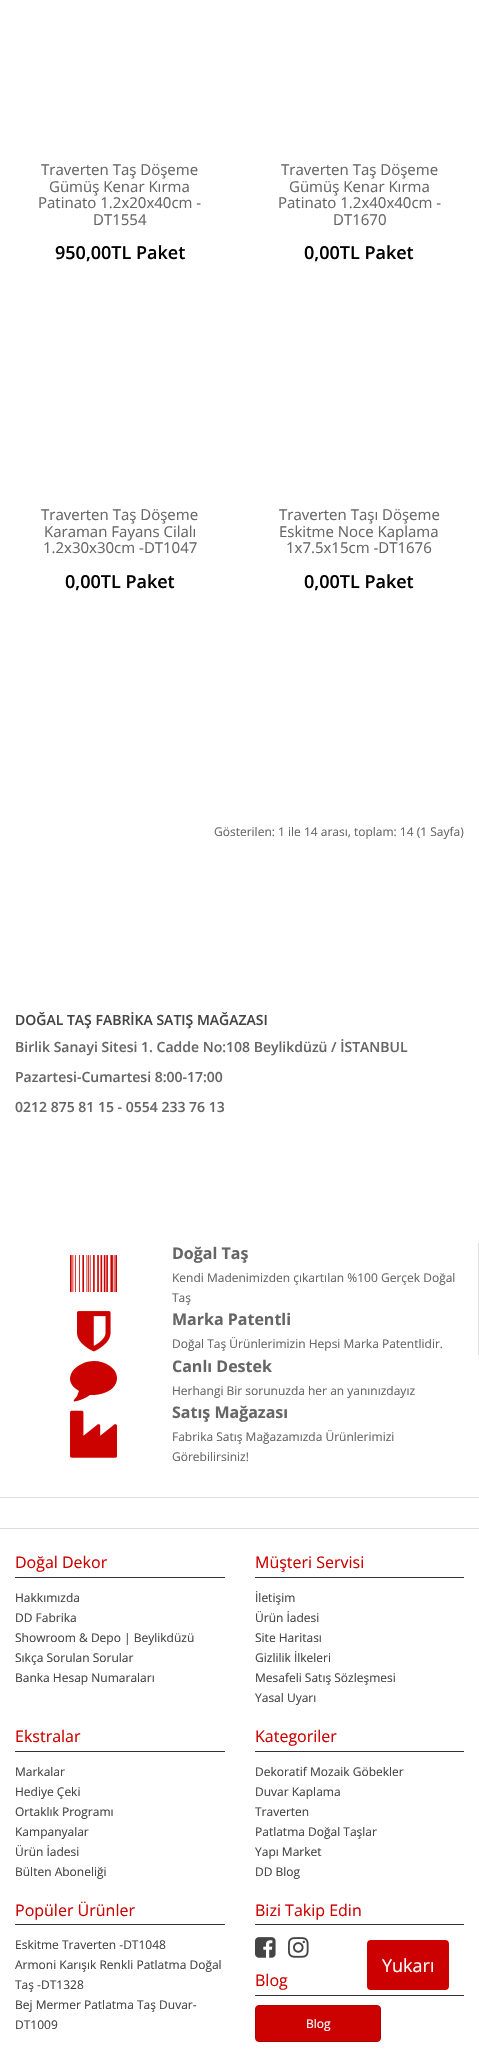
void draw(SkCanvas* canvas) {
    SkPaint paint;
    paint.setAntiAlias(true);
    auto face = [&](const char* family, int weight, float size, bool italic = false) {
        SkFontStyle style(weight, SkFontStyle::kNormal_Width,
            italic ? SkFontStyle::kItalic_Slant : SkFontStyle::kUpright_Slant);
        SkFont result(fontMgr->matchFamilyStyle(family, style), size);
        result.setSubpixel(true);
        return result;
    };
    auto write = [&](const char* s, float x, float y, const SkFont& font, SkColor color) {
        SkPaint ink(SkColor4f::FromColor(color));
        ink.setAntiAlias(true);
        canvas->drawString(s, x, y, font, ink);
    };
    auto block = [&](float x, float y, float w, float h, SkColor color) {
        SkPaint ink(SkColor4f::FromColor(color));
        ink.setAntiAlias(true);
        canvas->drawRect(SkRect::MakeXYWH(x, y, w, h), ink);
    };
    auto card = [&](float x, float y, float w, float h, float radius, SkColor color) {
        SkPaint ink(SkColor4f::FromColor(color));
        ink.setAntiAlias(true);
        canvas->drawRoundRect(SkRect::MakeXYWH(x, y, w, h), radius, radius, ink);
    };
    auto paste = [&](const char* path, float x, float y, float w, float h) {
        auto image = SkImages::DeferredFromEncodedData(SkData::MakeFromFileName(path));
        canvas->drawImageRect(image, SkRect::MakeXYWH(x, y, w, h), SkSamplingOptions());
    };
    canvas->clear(SK_ColorWHITE);
    auto kFont1 = face("Open Sans", 400, 15);
    write("Traverten Taş Döşeme", 41, 175, kFont1, SkColorSetRGB(102, 102, 102));
    write("Gümüş Kenar Kırma", 49, 192, kFont1, SkColorSetRGB(102, 102, 102));
    write("Patinato 1.2x20x40cm -", 38, 208, kFont1, SkColorSetRGB(102, 102, 102));
    write("DT1554", 93, 225, kFont1, SkColorSetRGB(102, 102, 102));
    auto kFont2 = face("Open Sans", 600, 18);
    write("950,00TL Paket", 55, 259, kFont2, SK_ColorBLACK);
    write("Traverten Taş Döşeme", 281, 175, kFont1, SkColorSetRGB(102, 102, 102));
    write("Gümüş Kenar Kırma", 289, 192, kFont1, SkColorSetRGB(102, 102, 102));
    write("Patinato 1.2x40x40cm -", 278, 208, kFont1, SkColorSetRGB(102, 102, 102));
    write("DT1670", 333, 225, kFont1, SkColorSetRGB(102, 102, 102));
    write("0,00TL Paket", 304, 259, kFont2, SK_ColorBLACK);
    write("Traverten Taş Döşeme", 41, 520, kFont1, SkColorSetRGB(102, 102, 102));
    write("Karaman Fayans Cilalı", 44, 537, kFont1, SkColorSetRGB(102, 102, 102));
    write("1.2x30x30cm -DT1047", 43, 553, kFont1, SkColorSetRGB(102, 102, 102));
    write("0,00TL Paket", 65, 588, kFont2, SK_ColorBLACK);
    write("Traverten Taşı Döşeme", 279, 520, kFont1, SkColorSetRGB(102, 102, 102));
    write("Eskitme Noce Kaplama", 279, 537, kFont1, SkColorSetRGB(102, 102, 102));
    write("1x7.5x15cm -DT1676", 286, 553, kFont1, SkColorSetRGB(102, 102, 102));
    write("0,00TL Paket", 304, 588, kFont2, SK_ColorBLACK);
    auto kFont3 = face("Open Sans", 400, 12);
    write("Gösterilen: 1 ile 14 arası, toplam: 14 (1 Sayfa)", 214, 836, kFont3, SkColorSetRGB(102, 102, 102));
    auto kFont4 = face("Open Sans", 600, 14);
    write("DOĞAL TAŞ FABRİKA SATIŞ MAĞAZASI", 15, 1025, kFont4, SkColorSetRGB(68, 68, 68));
    write("Birlik Sanayi Sitesi 1. Cadde No:108 Beylikdüzü / İSTANBUL", 15, 1052, kFont4, SkColorSetRGB(102, 102, 102));
    write("Pazartesi-Cumartesi 8:00-17:00", 15, 1082, kFont4, SkColorSetRGB(102, 102, 102));
    write("0212 875 81 15 - 0554 233 76 13", 15, 1112, kFont4, SkColorSetRGB(102, 102, 102));
    block(0, 1497, 479, 1, SkColorSetRGB(221, 221, 221));
    block(478, 1243, 1, 112, SkColorSetRGB(221, 221, 221));
    paste("pic1.png", 70, 1255, 47, 37);
    auto kFont5 = face("Open Sans", 700, 16);
    write("Doğal Taş", 172, 1259, kFont5, SkColorSetRGB(102, 102, 102));
    write("Kendi Madenimizden çıkartılan %100 Gerçek Doğal", 172, 1282, kFont3, SkColorSetRGB(102, 102, 102));
    write("Taş", 172, 1302, kFont3, SkColorSetRGB(102, 102, 102));
    paste("pic2.png", 77, 1311, 34, 41);
    write("Marka Patentli", 172, 1325, kFont5, SkColorSetRGB(102, 102, 102));
    write("Doğal Taş Ürünlerimizin Hepsi Marka Patentlidir.", 172, 1348, kFont3, SkColorSetRGB(102, 102, 102));
    paint.setColor(SkColorSetRGB(204, 2, 0));
    canvas->drawPath(SkPathBuilder().moveTo(117, 1378).cubicTo(117, 1373, 114, 1369, 110, 1366).cubicTo(87, 1350, 54, 1377, 79, 1391).lineTo(77, 1396).cubicTo(76, 1398, 70, 1403, 77, 1401).cubicTo(81, 1400, 86, 1398, 90, 1395).cubicTo(100, 1396, 117, 1391, 117, 1378).close().detach(), paint);
    write("Canlı Destek", 172, 1372, kFont5, SkColorSetRGB(102, 102, 102));
    write("Herhangi Bir sorunuzda her an yanınızdayız", 172, 1395, kFont3, SkColorSetRGB(102, 102, 102));
    paste("pic3.png", 70, 1410, 47, 48);
    write("Satış Mağazası", 172, 1418, kFont5, SkColorSetRGB(102, 102, 102));
    write("Fabrika Satış Mağazamızda Ürünlerimizi", 172, 1441, kFont3, SkColorSetRGB(102, 102, 102));
    write("Görebilirsiniz!", 172, 1461, kFont3, SkColorSetRGB(102, 102, 102));
    block(0, 1528, 479, 1, SkColorSetRGB(221, 221, 221));
    block(15, 1577, 210, 1, SkColorSetRGB(51, 51, 51));
    auto kFont6 = face("Open Sans", 400, 16);
    write("Doğal Dekor", 15, 1568, kFont6, SkColorSetRGB(204, 2, 0));
    write("Hakkımızda", 15, 1602, kFont3, SkColorSetRGB(68, 68, 68));
    write("DD Fabrika", 15, 1622, kFont3, SkColorSetRGB(68, 68, 68));
    write("Showroom & Depo | Beylikdüzü", 15, 1642, kFont3, SkColorSetRGB(68, 68, 68));
    write("Sıkça Sorulan Sorular", 15, 1662, kFont3, SkColorSetRGB(68, 68, 68));
    write("Banka Hesap Numaraları", 15, 1682, kFont3, SkColorSetRGB(68, 68, 68));
    block(255, 1577, 209, 1, SkColorSetRGB(51, 51, 51));
    write("Müşteri Servisi", 255, 1568, kFont6, SkColorSetRGB(204, 2, 0));
    write("İletişim", 255, 1602, kFont3, SkColorSetRGB(68, 68, 68));
    write("Ürün İadesi", 255, 1622, kFont3, SkColorSetRGB(68, 68, 68));
    write("Site Haritası", 255, 1642, kFont3, SkColorSetRGB(68, 68, 68));
    write("Gizlilik İlkeleri", 255, 1662, kFont3, SkColorSetRGB(68, 68, 68));
    write("Mesafeli Satış Sözleşmesi", 255, 1682, kFont3, SkColorSetRGB(68, 68, 68));
    write("Yasal Uyarı", 255, 1702, kFont3, SkColorSetRGB(68, 68, 68));
    block(15, 1751, 210, 1, SkColorSetRGB(51, 51, 51));
    write("Ekstralar", 15, 1742, kFont6, SkColorSetRGB(204, 2, 0));
    write("Markalar", 15, 1776, kFont3, SkColorSetRGB(68, 68, 68));
    write("Hediye Çeki", 15, 1796, kFont3, SkColorSetRGB(68, 68, 68));
    write("Ortaklık Programı", 15, 1816, kFont3, SkColorSetRGB(68, 68, 68));
    write("Kampanyalar", 15, 1836, kFont3, SkColorSetRGB(68, 68, 68));
    write("Ürün İadesi", 15, 1856, kFont3, SkColorSetRGB(68, 68, 68));
    write("Bülten Aboneliği", 15, 1876, kFont3, SkColorSetRGB(68, 68, 68));
    block(255, 1751, 209, 1, SkColorSetRGB(51, 51, 51));
    write("Kategoriler", 255, 1742, kFont6, SkColorSetRGB(204, 2, 0));
    write("Dekoratif Mozaik Göbekler", 255, 1776, kFont3, SkColorSetRGB(68, 68, 68));
    write("Duvar Kaplama", 255, 1796, kFont3, SkColorSetRGB(68, 68, 68));
    write("Traverten", 255, 1816, kFont3, SkColorSetRGB(68, 68, 68));
    write("Patlatma Doğal Taşlar", 255, 1836, kFont3, SkColorSetRGB(68, 68, 68));
    write("Yapı Market", 255, 1856, kFont3, SkColorSetRGB(68, 68, 68));
    write("DD Blog", 255, 1876, kFont3, SkColorSetRGB(68, 68, 68));
    block(15, 1924, 210, 1, SkColorSetRGB(51, 51, 51));
    write("Popüler Ürünler", 15, 1916, kFont6, SkColorSetRGB(204, 2, 0));
    write("Eskitme Traverten -DT1048", 15, 1949, kFont3, SkColorSetRGB(68, 68, 68));
    write("Armoni Karışık Renkli Patlatma Doğal", 15, 1969, kFont3, SkColorSetRGB(68, 68, 68));
    write("Taş -DT1328", 15, 1989, kFont3, SkColorSetRGB(68, 68, 68));
    write("Bej Mermer Patlatma Taş Duvar-", 15, 2009, kFont3, SkColorSetRGB(68, 68, 68));
    write("DT1009", 15, 2029, kFont3, SkColorSetRGB(68, 68, 68));
    block(255, 1924, 209, 1, SkColorSetRGB(51, 51, 51));
    write("Bizi Takip Edin", 255, 1916, kFont6, SkColorSetRGB(204, 2, 0));
    paste("pic4.png", 255, 1937, 21, 21);
    paste("pic5.png", 288, 1937, 21, 21);
    block(255, 1995, 209, 1, SkColorSetRGB(51, 51, 51));
    write("Blog", 255, 1986, kFont6, SkColorSetRGB(204, 2, 0));
    canvas->drawRoundRect(SkRect::MakeXYWH(255.5f, 2005.5f, 125, 36), 3.5f, 3.5f, paint);
    paint.setStyle(SkPaint::kStroke_Style);
    paint.setStrokeWidth(1);
    paint.setColor(SkColorSetRGB(171, 5, 3));
    canvas->drawRoundRect(SkRect::MakeXYWH(255.5f, 2005.5f, 125, 36), 3.5f, 3.5f, paint);
    write("Blog", 306, 2028, kFont3, SK_ColorWHITE);
    card(367, 1940, 82, 50, 4, SkColorSetRGB(204, 0, 0));
    auto kFont7 = face("Open Sans", 400, 18);
    write("Yukarı", 382, 1972, kFont7, SK_ColorWHITE);
}
